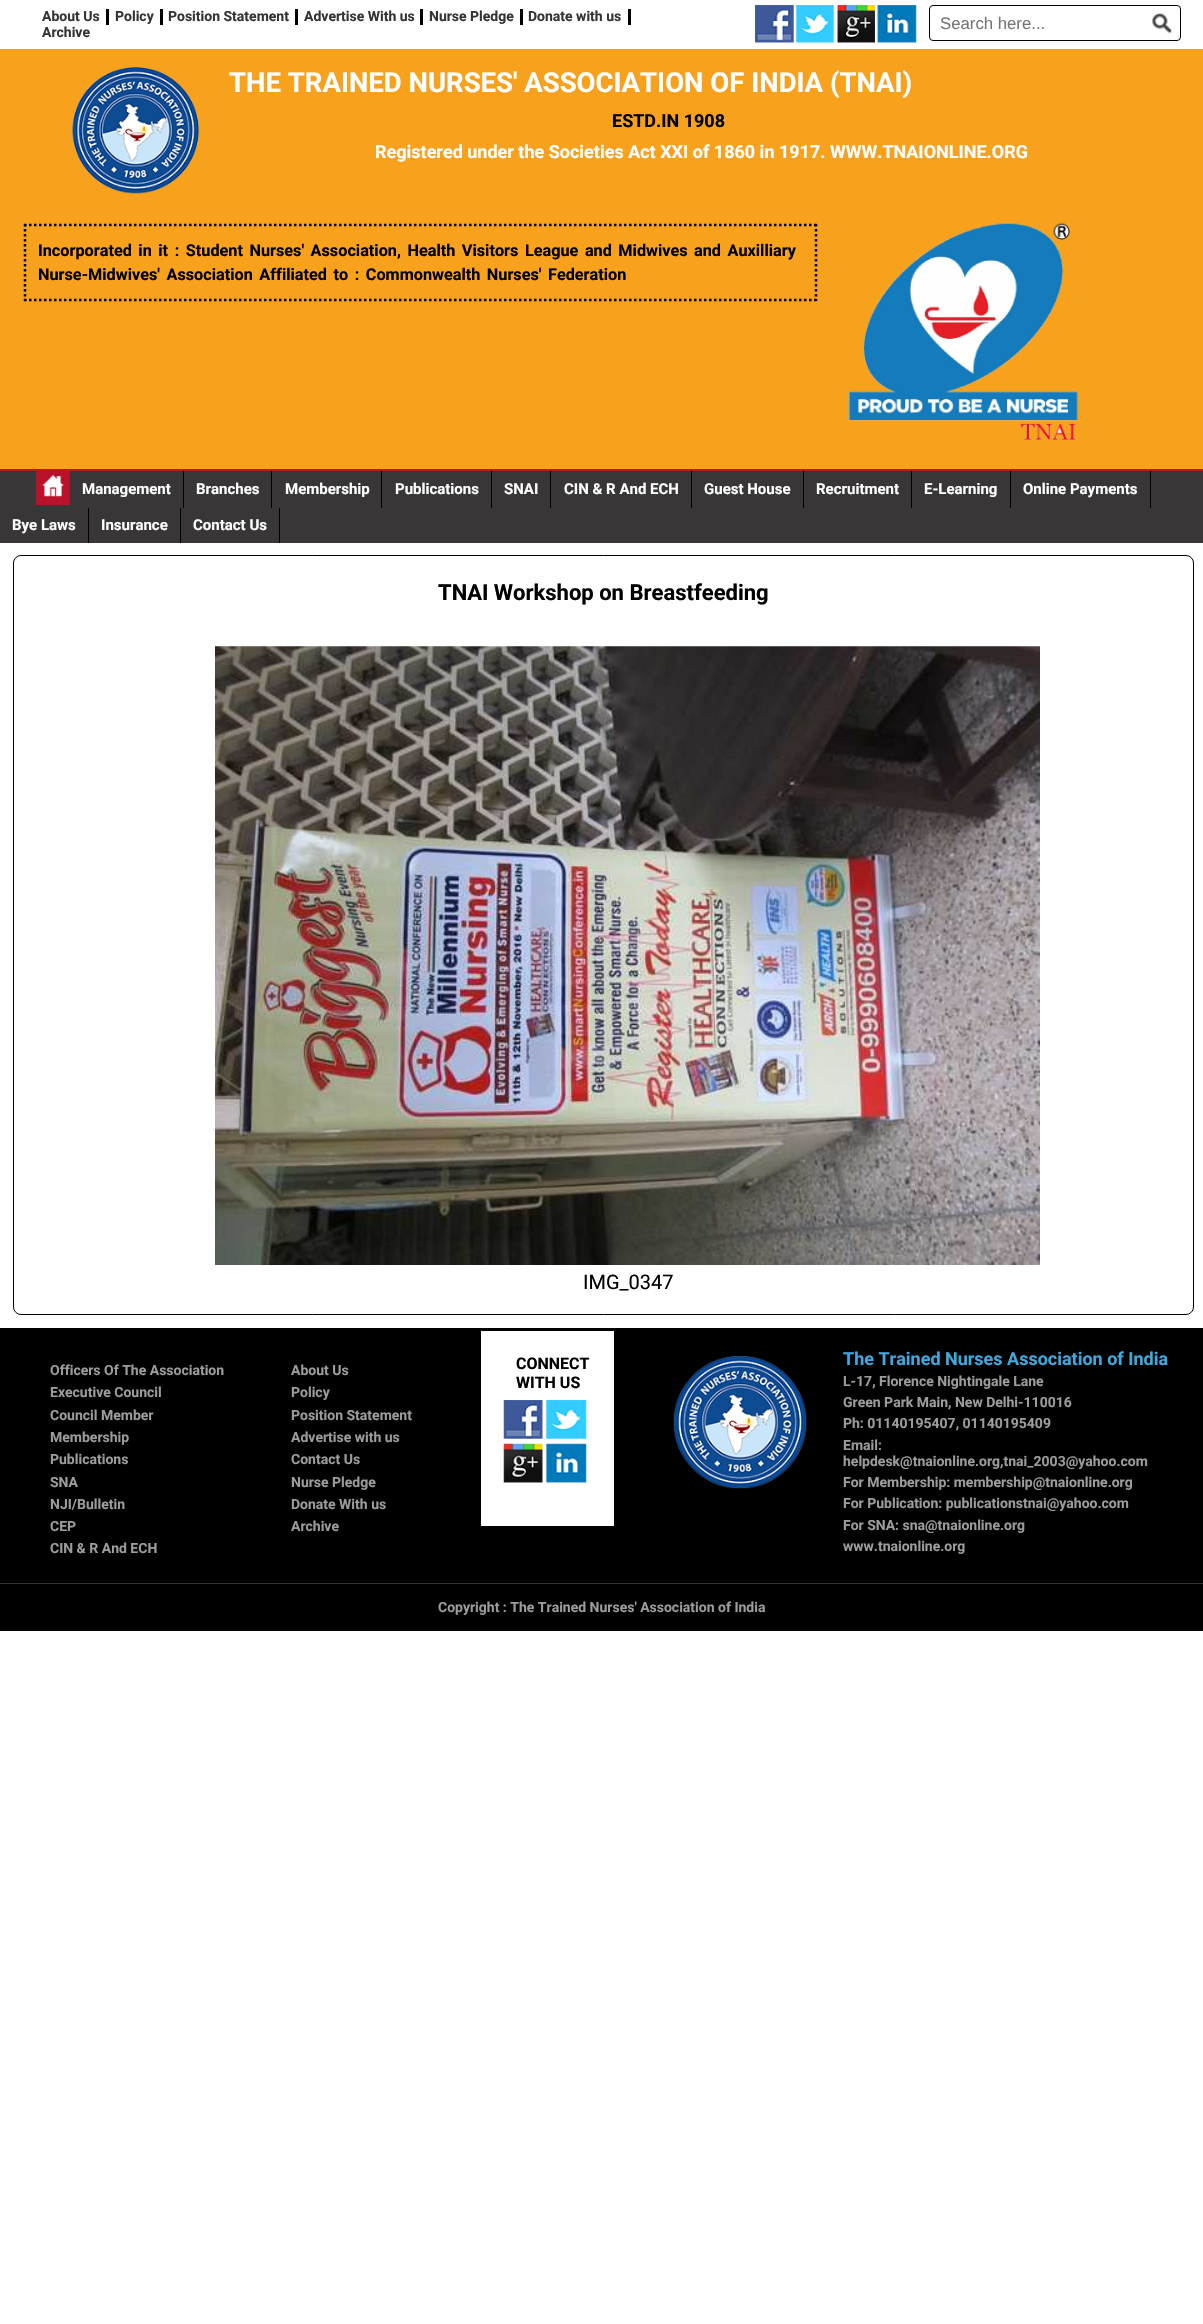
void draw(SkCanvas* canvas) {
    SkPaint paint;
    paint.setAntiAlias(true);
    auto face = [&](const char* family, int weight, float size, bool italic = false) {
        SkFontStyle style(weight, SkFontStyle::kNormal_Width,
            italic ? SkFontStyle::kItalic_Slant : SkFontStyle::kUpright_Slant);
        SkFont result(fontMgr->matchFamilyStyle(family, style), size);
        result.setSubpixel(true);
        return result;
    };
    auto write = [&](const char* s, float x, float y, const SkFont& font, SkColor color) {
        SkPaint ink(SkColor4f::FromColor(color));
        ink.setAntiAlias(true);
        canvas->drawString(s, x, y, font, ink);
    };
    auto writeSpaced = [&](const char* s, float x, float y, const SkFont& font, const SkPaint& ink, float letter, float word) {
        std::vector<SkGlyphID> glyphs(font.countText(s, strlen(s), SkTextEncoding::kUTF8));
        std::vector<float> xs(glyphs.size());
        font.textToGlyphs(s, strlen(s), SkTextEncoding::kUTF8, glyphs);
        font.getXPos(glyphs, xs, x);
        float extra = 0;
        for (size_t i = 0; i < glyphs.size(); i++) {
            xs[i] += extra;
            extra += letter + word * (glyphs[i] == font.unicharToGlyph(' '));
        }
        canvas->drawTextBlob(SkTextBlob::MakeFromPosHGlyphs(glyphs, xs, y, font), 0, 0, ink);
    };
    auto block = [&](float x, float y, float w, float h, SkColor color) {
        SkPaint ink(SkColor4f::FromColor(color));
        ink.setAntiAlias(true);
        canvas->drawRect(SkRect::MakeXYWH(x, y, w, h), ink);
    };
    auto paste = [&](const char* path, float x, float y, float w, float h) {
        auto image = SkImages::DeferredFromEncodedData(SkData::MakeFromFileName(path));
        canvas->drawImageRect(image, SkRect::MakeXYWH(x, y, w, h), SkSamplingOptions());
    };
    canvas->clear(SK_ColorWHITE);
    block(106, 9, 3, 16, SK_ColorBLACK);
    auto kFont1 = face("Roboto", 700, 14);
    write("About Us", 42, 21, kFont1, SkColorSetRGB(52, 52, 52));
    block(160, 9, 3, 16, SK_ColorBLACK);
    write("Policy", 115, 21, kFont1, SkColorSetRGB(52, 52, 52));
    block(295, 9, 3, 16, SK_ColorBLACK);
    write("Position Statement", 168, 21, kFont1, SkColorSetRGB(52, 52, 52));
    block(420, 9, 3, 16, SK_ColorBLACK);
    write("Advertise With us", 304, 21, kFont1, SkColorSetRGB(52, 52, 52));
    block(520, 9, 3, 16, SK_ColorBLACK);
    write("Nurse Pledge", 429, 21, kFont1, SkColorSetRGB(52, 52, 52));
    block(628, 9, 3, 16, SK_ColorBLACK);
    write("Donate with us", 528, 21, kFont1, SkColorSetRGB(52, 52, 52));
    write("Archive", 42, 37, kFont1, SkColorSetRGB(52, 52, 52));
    paste("pic1.png", 755, 5, 39, 38);
    paste("pic2.png", 796, 5, 38, 38);
    paste("pic3.png", 837, 5, 38, 38);
    paste("pic4.png", 877, 5, 40, 38);
    paint.setStyle(SkPaint::kStroke_Style);
    paint.setStrokeWidth(1);
    paint.setColor(SK_ColorBLACK);
    canvas->drawRoundRect(SkRect::MakeXYWH(929.5f, 5.5f, 251, 35), 3.5f, 3.5f, paint);
    auto kFont2 = face("Liberation Sans", 400, 16.75f);
    write("Search here...", 940, 29, kFont2, SkColorSetRGB(117, 117, 117));
    paste("pic5.png", 1152, 13, 20, 20);
    block(0, 49, 1203, 420, SkColorSetRGB(248, 161, 28));
    paste("pic6.png", 72, 67, 127, 127);
    auto kFont3 = face("Roboto", 700, 27.5f);
    write("THE TRAINED NURSES' ASSOCIATION OF INDIA (TNAI)", 229, 92, kFont3, SK_ColorWHITE);
    auto kFont4 = face("Roboto", 700, 18);
    write("ESTD.IN 1908", 612, 127, kFont4, SK_ColorBLACK);
    write("Registered under the Societies Act XXI of 1860 in 1917. WWW.TNAIONLINE.ORG", 375, 158, kFont4, SK_ColorWHITE);
    paint.setStrokeWidth(2.5f);
    paint.setPathEffect(SkDashPathEffect::Make({{2.5f, 2.5f}}, 0));
    canvas->drawPath(SkPathBuilder().moveTo(24, 225).lineTo(817.5f, 225).detach(), paint);
    paint.setPathEffect(nullptr);
    paint.setPathEffect(SkDashPathEffect::Make({{2.5f, 2.5f}}, 0));
    canvas->drawPath(SkPathBuilder().moveTo(816, 224).lineTo(816, 301).detach(), paint);
    paint.setPathEffect(nullptr);
    paint.setPathEffect(SkDashPathEffect::Make({{2.5f, 2.5f}}, 0));
    canvas->drawPath(SkPathBuilder().moveTo(24, 300).lineTo(817.5f, 300).detach(), paint);
    paint.setPathEffect(nullptr);
    paint.setPathEffect(SkDashPathEffect::Make({{2.5f, 2.5f}}, 0));
    canvas->drawPath(SkPathBuilder().moveTo(25, 224).lineTo(25, 301).detach(), paint);
    paint.setPathEffect(nullptr);
    auto kFont5 = face("Roboto", 700, 16.25f);
    paint.setStyle(SkPaint::kFill_Style);
    writeSpaced("Incorporated in it : Student Nurses' Association, Health Visitors League and Midwives", 38, 256, kFont5, paint, 0, 2.5f);
    writeSpaced("and Auxilliary", 694, 256, kFont5, paint, 0, 2.5f);
    writeSpaced("Nurse-Midwives' Association Affiliated to : Commonwealth Nurses'", 38, 280, kFont5, paint, 0, 2.5f);
    write("Federation", 548, 280, kFont5, SK_ColorBLACK);
    paste("pic7.png", 848, 223, 230, 217);
    block(0, 469, 1203, 2, SkColorSetRGB(185, 19, 43));
    block(0, 471, 1203, 72, SkColorSetRGB(56, 54, 55));
    block(36, 471, 34, 34, SkColorSetRGB(185, 19, 43));
    paste("pic8.png", 42, 475, 22, 22);
    block(183, 471, 1, 37, SK_ColorBLACK);
    auto kFont6 = face("Roboto", 700, 15);
    write("Management", 82, 494, kFont6, SK_ColorWHITE);
    block(271, 471, 1, 37, SK_ColorBLACK);
    write("Branches", 196, 494, kFont6, SK_ColorWHITE);
    block(381, 471, 1, 37, SK_ColorBLACK);
    write("Membership", 285, 494, kFont6, SK_ColorWHITE);
    block(491, 471, 1, 37, SK_ColorBLACK);
    write("Publications", 395, 494, kFont6, SK_ColorWHITE);
    block(550, 471, 1, 37, SK_ColorBLACK);
    write("SNAI", 504, 494, kFont6, SK_ColorWHITE);
    block(691, 471, 1, 37, SK_ColorBLACK);
    write("CIN & R And ECH", 564, 494, kFont6, SK_ColorWHITE);
    block(803, 471, 1, 37, SK_ColorBLACK);
    write("Guest House", 704, 494, kFont6, SK_ColorWHITE);
    block(911, 471, 1, 37, SK_ColorBLACK);
    write("Recruitment", 816, 494, kFont6, SK_ColorWHITE);
    block(1010, 471, 1, 37, SK_ColorBLACK);
    write("E-Learning", 924, 494, kFont6, SK_ColorWHITE);
    block(1150, 471, 1, 37, SK_ColorBLACK);
    write("Online Payments", 1023, 494, kFont6, SK_ColorWHITE);
    block(88, 508, 1, 35, SK_ColorBLACK);
    write("Bye Laws", 12, 530, kFont6, SK_ColorWHITE);
    block(180, 508, 1, 35, SK_ColorBLACK);
    write("Insurance", 101, 530, kFont6, SK_ColorWHITE);
    block(279, 508, 1, 35, SK_ColorBLACK);
    write("Contact Us", 193, 530, kFont6, SK_ColorWHITE);
    paint.setStyle(SkPaint::kStroke_Style);
    paint.setStrokeWidth(1);
    canvas->drawRoundRect(SkRect::MakeXYWH(13.5f, 555.5f, 1180, 759), 7.5f, 7.5f, paint);
    auto kFont7 = face("Roboto", 700, 22);
    write("TNAI Workshop on Breastfeeding", 438, 600, kFont7, SK_ColorBLACK);
    paste("pic9.png", 215, 646, 825, 619);
    auto kFont8 = face("Roboto", 400, 20);
    write("IMG_0347", 583, 1289, kFont8, SK_ColorBLACK);
    block(0, 1328, 1203, 255, SK_ColorBLACK);
    block(0, 1583, 1203, 1, SkColorSetRGB(51, 51, 51));
    write("Officers Of The Association", 50, 1375, kFont1, SkColorSetRGB(156, 156, 156));
    write("Executive Council", 50, 1397, kFont1, SkColorSetRGB(156, 156, 156));
    write("Council Member", 50, 1420, kFont1, SkColorSetRGB(156, 156, 156));
    write("Membership", 50, 1442, kFont1, SkColorSetRGB(156, 156, 156));
    write("Publications", 50, 1464, kFont1, SkColorSetRGB(156, 156, 156));
    write("SNA", 50, 1487, kFont1, SkColorSetRGB(156, 156, 156));
    write("NJI/Bulletin", 50, 1509, kFont1, SkColorSetRGB(156, 156, 156));
    write("CEP", 50, 1531, kFont1, SkColorSetRGB(156, 156, 156));
    write("CIN & R And ECH", 50, 1553, kFont1, SkColorSetRGB(156, 156, 156));
    write("About Us", 291, 1375, kFont1, SkColorSetRGB(156, 156, 156));
    write("Policy", 291, 1397, kFont1, SkColorSetRGB(156, 156, 156));
    write("Position Statement", 291, 1420, kFont1, SkColorSetRGB(156, 156, 156));
    write("Advertise with us", 291, 1442, kFont1, SkColorSetRGB(156, 156, 156));
    write("Contact Us", 291, 1464, kFont1, SkColorSetRGB(156, 156, 156));
    write("Nurse Pledge", 291, 1487, kFont1, SkColorSetRGB(156, 156, 156));
    write("Donate With us", 291, 1509, kFont1, SkColorSetRGB(156, 156, 156));
    write("Archive", 291, 1531, kFont1, SkColorSetRGB(156, 156, 156));
    block(481, 1331, 133, 195, SK_ColorWHITE);
    auto kFont9 = face("Roboto", 700, 16);
    write("CONNECT", 516, 1369, kFont9, SK_ColorBLACK);
    write("WITH US", 516, 1388, kFont9, SK_ColorBLACK);
    paste("pic10.png", 503, 1400, 40, 39);
    paste("pic11.png", 546, 1400, 41, 39);
    paste("pic12.png", 503, 1443, 40, 40);
    paste("pic13.png", 546, 1443, 41, 40);
    paste("pic14.png", 673, 1356, 134, 133);
    write("The Trained Nurses Association of India", 843, 1365, kFont4, SkColorSetRGB(64, 168, 221));
    write("L-17, Florence Nightingale Lane", 843, 1386, kFont1, SkColorSetRGB(156, 156, 156));
    write("Green Park Main, New Delhi-110016", 843, 1407, kFont1, SkColorSetRGB(156, 156, 156));
    write("Ph: 01140195407, 01140195409", 843, 1428, kFont1, SkColorSetRGB(156, 156, 156));
    write("Email:", 843, 1450, kFont1, SkColorSetRGB(156, 156, 156));
    write("helpdesk@tnaionline.org,tnai_2003@yahoo.com", 843, 1466, kFont1, SkColorSetRGB(156, 156, 156));
    write("For Membership: membership@tnaionline.org", 843, 1487, kFont1, SkColorSetRGB(156, 156, 156));
    write("For Publication: publicationstnai@yahoo.com", 843, 1508, kFont1, SkColorSetRGB(156, 156, 156));
    write("For SNA: sna@tnaionline.org", 843, 1530, kFont1, SkColorSetRGB(156, 156, 156));
    write("www.tnaionline.org", 843, 1551, kFont1, SkColorSetRGB(156, 156, 156));
    block(0, 1584, 1203, 47, SK_ColorBLACK);
    write("Copyright : The Trained Nurses' Association of India", 438, 1612, kFont1, SkColorSetRGB(156, 156, 156));
}
